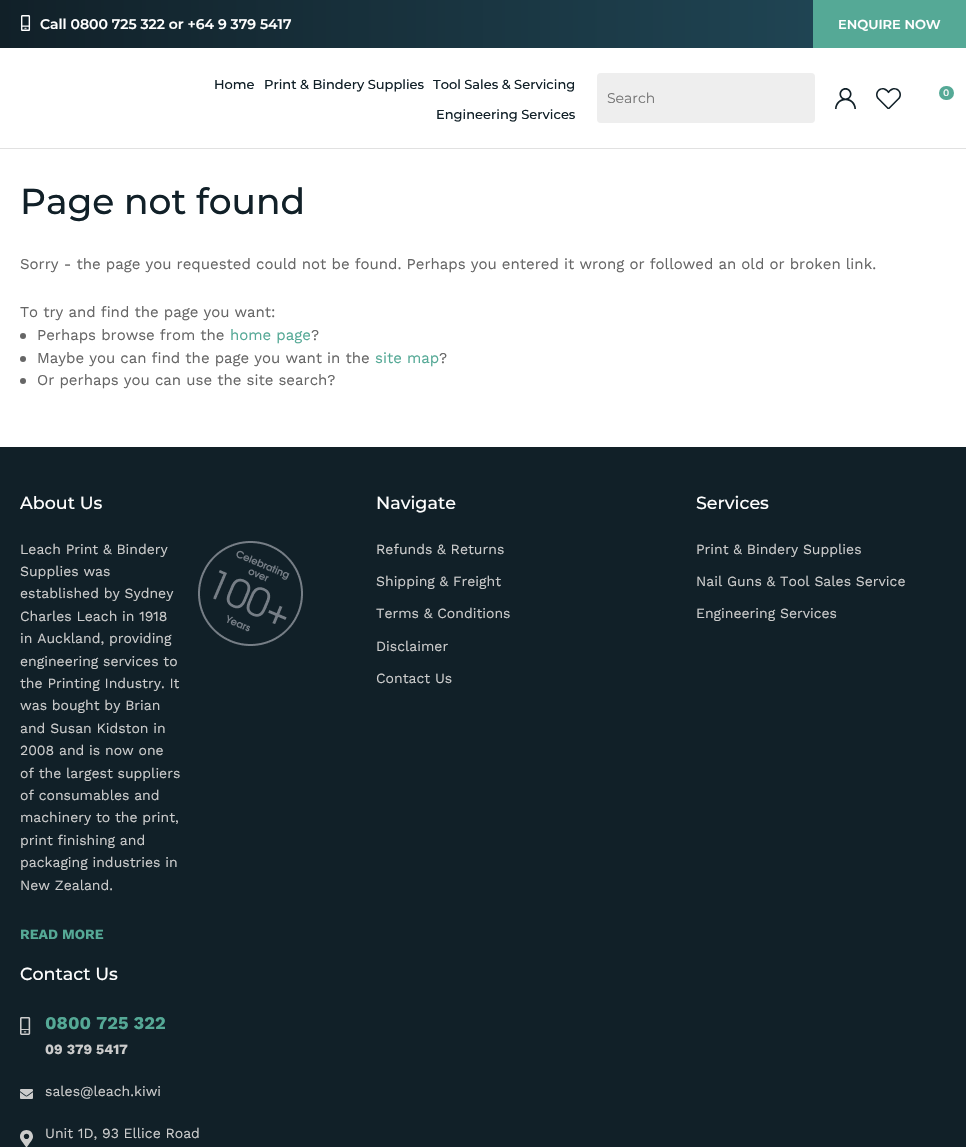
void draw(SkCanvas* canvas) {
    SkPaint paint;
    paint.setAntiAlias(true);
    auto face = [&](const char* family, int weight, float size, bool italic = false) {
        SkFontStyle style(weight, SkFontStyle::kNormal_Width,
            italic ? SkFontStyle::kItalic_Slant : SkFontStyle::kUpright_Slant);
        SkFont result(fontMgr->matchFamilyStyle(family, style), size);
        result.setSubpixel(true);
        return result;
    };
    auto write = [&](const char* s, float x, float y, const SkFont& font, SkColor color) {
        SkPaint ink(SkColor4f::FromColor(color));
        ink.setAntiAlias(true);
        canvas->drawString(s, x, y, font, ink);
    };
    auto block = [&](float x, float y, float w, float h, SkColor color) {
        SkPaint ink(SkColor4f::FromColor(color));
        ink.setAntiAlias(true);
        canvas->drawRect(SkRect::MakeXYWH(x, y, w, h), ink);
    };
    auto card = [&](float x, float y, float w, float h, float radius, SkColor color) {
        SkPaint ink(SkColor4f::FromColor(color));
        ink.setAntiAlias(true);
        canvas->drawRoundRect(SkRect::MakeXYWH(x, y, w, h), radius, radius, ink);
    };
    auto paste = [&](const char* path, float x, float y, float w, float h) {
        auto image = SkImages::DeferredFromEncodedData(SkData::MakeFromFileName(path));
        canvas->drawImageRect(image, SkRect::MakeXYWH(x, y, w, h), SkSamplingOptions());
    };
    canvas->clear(SK_ColorWHITE);
    {
        const SkColor colors[] = {SkColorSetRGB(17, 32, 40), SkColorSetRGB(34, 75, 91)};
        const float stops[] = {0, 1};
        const SkPoint ends[] = {{0, 24}, {966, 24}};
        paint.setShader(SkGradientShader::MakeLinear(ends, colors, stops, 2, SkTileMode::kClamp));
        paint.setAlpha(255);
    }
    canvas->drawRect(SkRect::MakeXYWH(0, 0, 813, 48), paint);
    paste("pic1.png", 21, 15, 10, 16);
    auto kFont1 = face("Montserrat", 600, 14);
    write("Call 0800 725 322 or +64 9 379 5417", 40, 29, kFont1, SK_ColorWHITE);
    block(813, 0, 153, 48, SkColorSetRGB(85, 169, 150));
    auto kFont2 = face("Montserrat", 600, 13);
    write("ENQUIRE NOW", 838, 29, kFont2, SK_ColorWHITE);
    auto kFont3 = face("Montserrat", 500, 13);
    write("Home", 214, 89, kFont3, SkColorSetRGB(17, 32, 40));
    write("Print & Bindery Supplies", 264, 89, kFont3, SkColorSetRGB(17, 32, 40));
    write("Tool Sales & Servicing", 433, 89, kFont3, SkColorSetRGB(17, 32, 40));
    write("Engineering Services", 436, 119, kFont3, SkColorSetRGB(17, 32, 40));
    card(597, 73, 218, 50, 4, SkColorSetRGB(238, 238, 238));
    auto kFont4 = face("Montserrat", 400, 14);
    write("Search", 607, 103, kFont4, SkColorSetRGB(117, 117, 117));
    paste("pic2.png", 835, 88, 21, 21);
    paste("pic3.png", 876, 88, 25, 21);
    card(939, 86, 15, 14, 7, SkColorSetRGB(85, 169, 150));
    auto kFont5 = face("Work Sans", 500, 10);
    write("0", 943, 96, kFont5, SkColorSetRGB(248, 248, 248));
    block(0, 148, 966, 1, SkColorSetRGB(225, 225, 225));
    auto kFont6 = face("Montserrat", 500, 36);
    write("Page not found", 20, 214, kFont6, SkColorSetRGB(17, 32, 40));
    auto kFont7 = face("Work Sans", 400, 15);
    write("Sorry - the page you requested could not be found. Perhaps you entered it wrong or followed an old or broken link.", 20, 269, kFont7, SkColorSetRGB(102, 102, 102));
    write("To try and find the page you want:", 20, 317, kFont7, SkColorSetRGB(102, 102, 102));
    paint.setShader(nullptr);
    paint.setColor(SkColorSetRGB(102, 102, 102));
    canvas->drawCircle(23, 336, 3, paint);
    write("Perhaps browse from the", 37, 340, kFont7, SkColorSetRGB(102, 102, 102));
    write("home page", 230, 340, kFont7, SkColorSetRGB(85, 169, 150));
    write("?", 311, 340, kFont7, SkColorSetRGB(102, 102, 102));
    canvas->drawCircle(23, 359, 3, paint);
    write("Maybe you can find the page you want in the", 37, 363, kFont7, SkColorSetRGB(102, 102, 102));
    write("site map", 375, 363, kFont7, SkColorSetRGB(85, 169, 150));
    write("?", 439, 363, kFont7, SkColorSetRGB(102, 102, 102));
    canvas->drawCircle(23, 381, 3, paint);
    write("Or perhaps you can use the site search?", 37, 385, kFont7, SkColorSetRGB(102, 102, 102));
    block(0, 447, 966, 700, SkColorSetRGB(17, 32, 40));
    auto kFont8 = face("Montserrat", 500, 17.5f);
    write("About Us", 20, 509, kFont8, SK_ColorWHITE);
    auto kFont9 = face("Work Sans", 400, 14);
    write("Leach Print & Bindery", 20, 554, kFont9, SkColorSetRGB(204, 204, 204));
    write("Supplies was", 20, 576, kFont9, SkColorSetRGB(204, 204, 204));
    write("established by Sydney", 20, 598, kFont9, SkColorSetRGB(204, 204, 204));
    write("Charles Leach in 1918", 20, 621, kFont9, SkColorSetRGB(204, 204, 204));
    write("in Auckland, providing", 20, 643, kFont9, SkColorSetRGB(204, 204, 204));
    write("engineering services to", 20, 666, kFont9, SkColorSetRGB(204, 204, 204));
    write("the Printing Industry. It", 20, 688, kFont9, SkColorSetRGB(204, 204, 204));
    write("was bought by Brian", 20, 710, kFont9, SkColorSetRGB(204, 204, 204));
    write("and Susan Kidston in", 20, 733, kFont9, SkColorSetRGB(204, 204, 204));
    write("2008 and is now one", 20, 755, kFont9, SkColorSetRGB(204, 204, 204));
    write("of the largest suppliers", 20, 778, kFont9, SkColorSetRGB(204, 204, 204));
    write("of consumables and", 20, 800, kFont9, SkColorSetRGB(204, 204, 204));
    write("machinery to the print,", 20, 822, kFont9, SkColorSetRGB(204, 204, 204));
    write("print finishing and", 20, 845, kFont9, SkColorSetRGB(204, 204, 204));
    write("packaging industries in", 20, 867, kFont9, SkColorSetRGB(204, 204, 204));
    write("New Zealand.", 20, 890, kFont9, SkColorSetRGB(204, 204, 204));
    paste("pic4.png", 198, 541, 105, 105);
    auto kFont10 = face("Work Sans", 700, 14);
    write("READ MORE", 20, 939, kFont10, SkColorSetRGB(85, 169, 150));
    write("Navigate", 376, 509, kFont8, SK_ColorWHITE);
    write("Refunds & Returns", 376, 554, kFont9, SkColorSetRGB(204, 204, 204));
    write("Shipping & Freight", 376, 586, kFont9, SkColorSetRGB(204, 204, 204));
    write("Terms & Conditions", 376, 618, kFont9, SkColorSetRGB(204, 204, 204));
    write("Disclaimer", 376, 651, kFont9, SkColorSetRGB(204, 204, 204));
    write("Contact Us", 376, 683, kFont9, SkColorSetRGB(204, 204, 204));
    write("Services", 696, 509, kFont8, SK_ColorWHITE);
    write("Print & Bindery Supplies", 696, 554, kFont9, SkColorSetRGB(204, 204, 204));
    write("Nail Guns & Tool Sales Service", 696, 586, kFont9, SkColorSetRGB(204, 204, 204));
    write("Engineering Services", 696, 618, kFont9, SkColorSetRGB(204, 204, 204));
    write("Contact Us", 20, 980, kFont8, SK_ColorWHITE);
    paste("pic5.png", 20, 1017, 11, 18);
    auto kFont11 = face("Work Sans", 700, 18);
    write("0800 725 322", 45, 1029, kFont11, SkColorSetRGB(85, 169, 150));
    write("09 379 5417", 45, 1054, kFont10, SkColorSetRGB(204, 204, 204));
    paste("pic6.png", 20, 1089, 13, 10);
    write("sales@leach.kiwi", 45, 1096, kFont9, SkColorSetRGB(204, 204, 204));
    paste("pic7.png", 20, 1130, 13, 17);
    write("Unit 1D, 93 Ellice Road", 45, 1138, kFont9, SkColorSetRGB(204, 204, 204));
}
